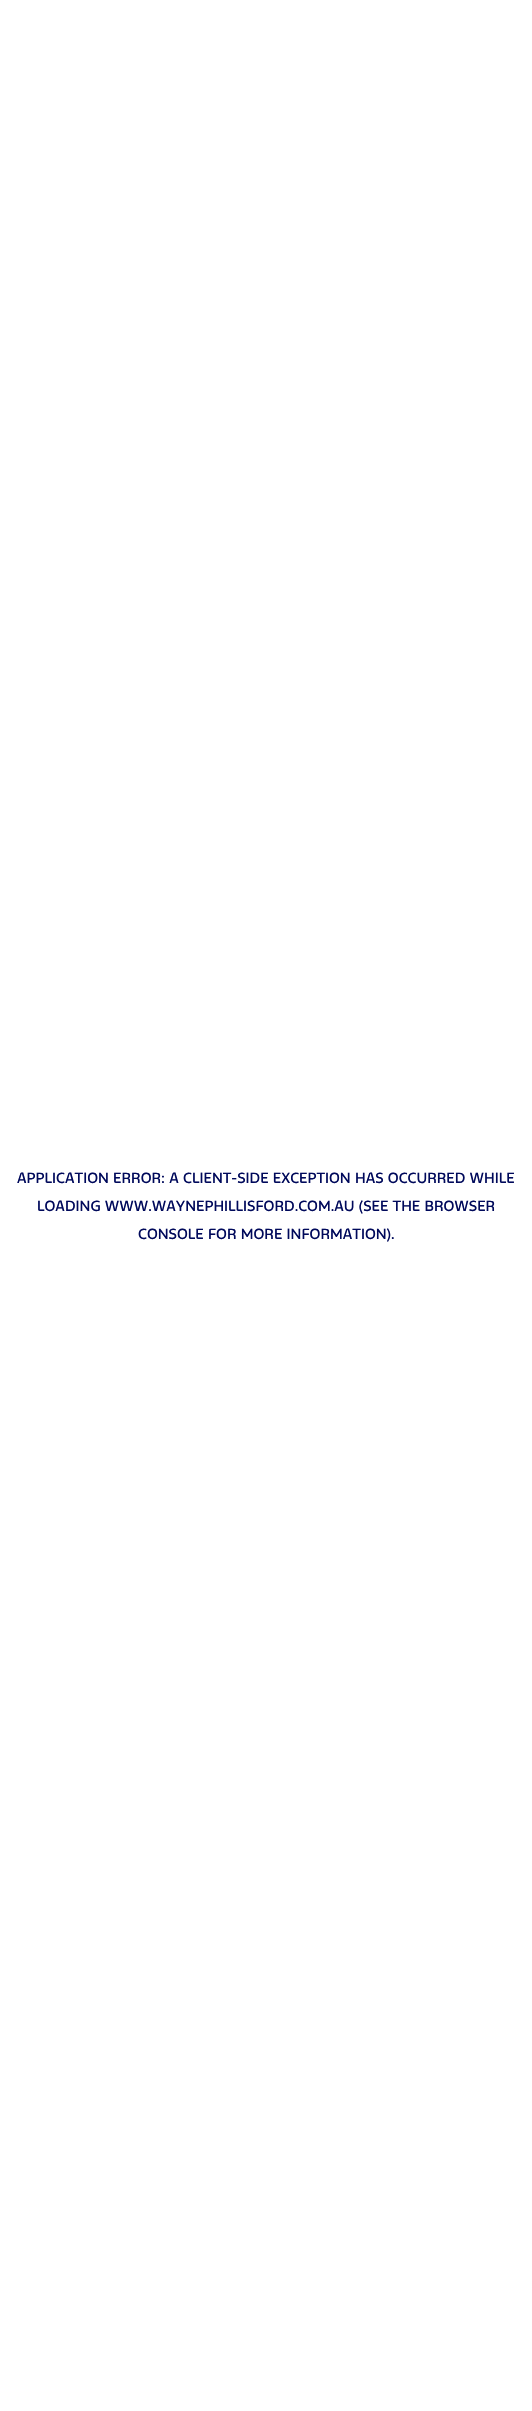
void draw(SkCanvas* canvas) {
    SkPaint paint;
    paint.setAntiAlias(true);
    auto face = [&](const char* family, int weight, float size, bool italic = false) {
        SkFontStyle style(weight, SkFontStyle::kNormal_Width,
            italic ? SkFontStyle::kItalic_Slant : SkFontStyle::kUpright_Slant);
        SkFont result(fontMgr->matchFamilyStyle(family, style), size);
        result.setSubpixel(true);
        return result;
    };
    auto write = [&](const char* s, float x, float y, const SkFont& font, SkColor color) {
        SkPaint ink(SkColor4f::FromColor(color));
        ink.setAntiAlias(true);
        canvas->drawString(s, x, y, font, ink);
    };
    canvas->clear(SK_ColorWHITE);
    auto kFont1 = face("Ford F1", 500, 14);
    write("APPLICATION ERROR: A CLIENT-SIDE EXCEPTION HAS OCCURRED WHILE", 17, 1183, kFont1, SkColorSetRGB(0, 9, 91));
    write("LOADING WWW.WAYNEPHILLISFORD.COM.AU (SEE THE BROWSER", 37, 1211, kFont1, SkColorSetRGB(0, 9, 91));
    write("CONSOLE FOR MORE INFORMATION).", 138, 1239, kFont1, SkColorSetRGB(0, 9, 91));
}
